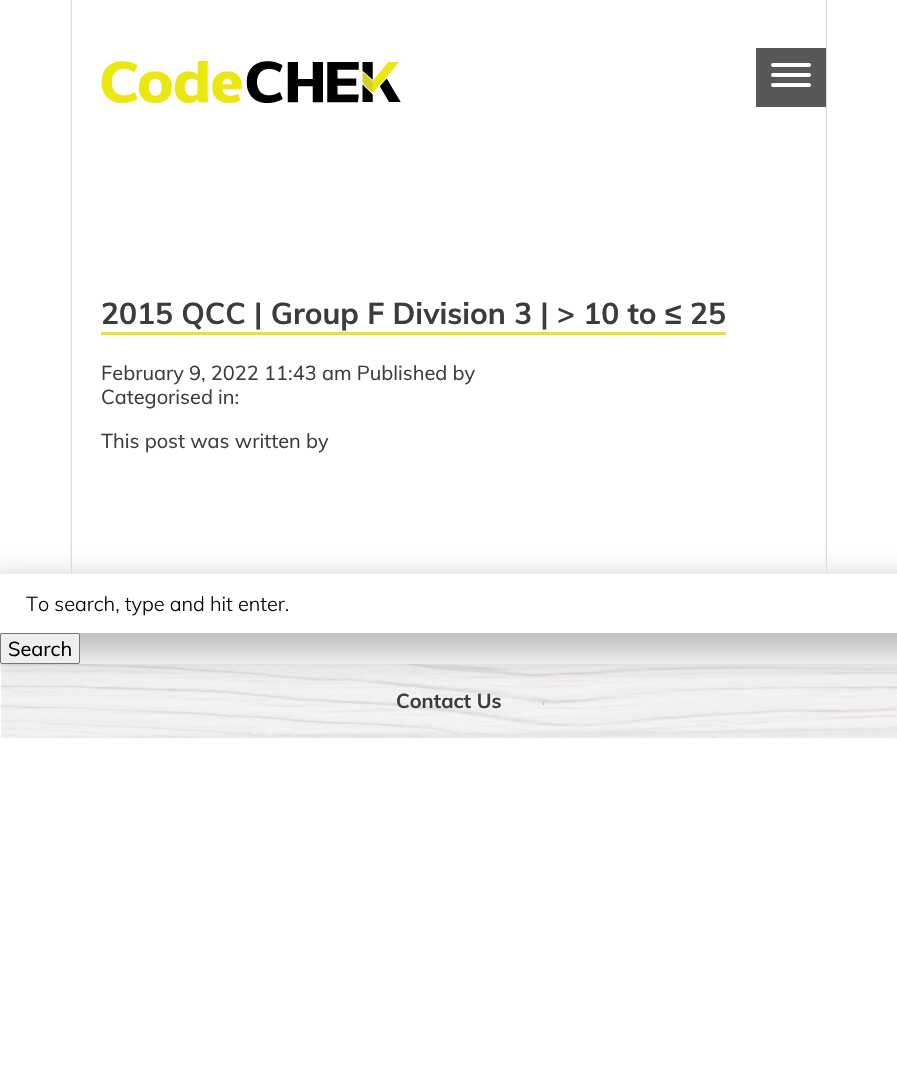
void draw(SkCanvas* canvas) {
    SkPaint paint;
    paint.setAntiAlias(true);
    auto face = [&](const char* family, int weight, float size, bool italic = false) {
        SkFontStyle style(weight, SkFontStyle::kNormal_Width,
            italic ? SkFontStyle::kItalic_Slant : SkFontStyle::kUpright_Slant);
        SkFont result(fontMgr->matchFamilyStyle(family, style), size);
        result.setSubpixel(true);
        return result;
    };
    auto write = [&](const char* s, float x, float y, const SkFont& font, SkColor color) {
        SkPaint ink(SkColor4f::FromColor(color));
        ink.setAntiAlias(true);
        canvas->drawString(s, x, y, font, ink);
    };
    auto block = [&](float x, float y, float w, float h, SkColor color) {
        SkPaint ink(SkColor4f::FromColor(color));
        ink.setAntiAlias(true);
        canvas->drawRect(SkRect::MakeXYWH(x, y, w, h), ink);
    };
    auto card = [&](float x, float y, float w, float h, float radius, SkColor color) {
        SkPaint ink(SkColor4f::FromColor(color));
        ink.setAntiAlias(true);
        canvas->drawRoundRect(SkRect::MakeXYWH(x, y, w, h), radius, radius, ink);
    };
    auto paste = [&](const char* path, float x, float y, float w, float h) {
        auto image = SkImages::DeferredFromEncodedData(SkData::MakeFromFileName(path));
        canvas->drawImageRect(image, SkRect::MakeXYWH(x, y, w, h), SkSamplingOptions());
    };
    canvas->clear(SK_ColorWHITE);
    paste("pic2.png", 0, 664, 897, 74);
    canvas->save();
    canvas->clipPath(SkPathBuilder(SkPathFillType::kEvenOdd).moveTo(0, 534).lineTo(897, 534).lineTo(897, 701).lineTo(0, 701).close().moveTo(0, 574).lineTo(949, 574).lineTo(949, 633).lineTo(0, 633).close().detach(), true);
    paint.setColor(SkColorSetARGB(64, 0, 0, 0));
    paint.setMaskFilter(SkMaskFilter::MakeBlur(kNormal_SkBlurStyle, 15));
    canvas->drawRect(SkRect::MakeXYWH(-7, 580, 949, 75), paint);
    paint.setMaskFilter(nullptr);
    canvas->restore();
    block(826, 0, 1, 574, SkColorSetRGB(219, 219, 219));
    block(70, 0, 1, 574, SkColorSetRGB(243, 243, 243));
    block(71, 0, 1, 574, SkColorSetRGB(219, 219, 219));
    block(825, 0, 1, 574, SkColorSetRGB(243, 243, 243));
    paste("pic1.png", 101, 61, 300, 42);
    block(756, 48, 70, 59, SkColorSetRGB(87, 87, 86));
    card(771, 63, 40, 4, 2, SK_ColorWHITE);
    card(771, 73, 40, 4, 2, SK_ColorWHITE);
    card(771, 83, 40, 4, 2, SK_ColorWHITE);
    auto kFont1 = face("Muli", 700, 30);
    write("2015 QCC | Group F Division 3 | > 10 to", 101, 324, kFont1, SkColorSetRGB(60, 60, 59));
    block(101, 332, 625, 3, SkColorSetRGB(231, 227, 50));
    auto kFont2 = face("Liberation Sans", 700, 30);
    write("≤", 665, 324, kFont2, SkColorSetRGB(60, 60, 59));
    write("25", 690, 324, kFont1, SkColorSetRGB(60, 60, 59));
    auto kFont3 = face("Muli", 400, 20);
    write("February 9, 2022 11:43 am Published by", 101, 380, kFont3, SkColorSetRGB(60, 60, 59));
    write("Categorised in:", 101, 404, kFont3, SkColorSetRGB(60, 60, 59));
    write("This post was written by", 101, 448, kFont3, SkColorSetRGB(60, 60, 59));
    auto kFont4 = face("Muli", 300, 20);
    write("To search, type and hit enter.", 26, 611, kFont4, SK_ColorBLACK);
    paint.setColor(SkColorSetRGB(239, 239, 239));
    canvas->drawRoundRect(SkRect::MakeXYWH(0.5f, 633.5f, 79, 30), 1.5f, 1.5f, paint);
    paint.setStyle(SkPaint::kStroke_Style);
    paint.setStrokeWidth(1);
    paint.setColor(SkColorSetRGB(118, 118, 118));
    canvas->drawRoundRect(SkRect::MakeXYWH(0.5f, 633.5f, 79, 30), 1.5f, 1.5f, paint);
    write("Search", 8, 656, kFont3, SK_ColorBLACK);
    auto kFont5 = face("Muli", 700, 20);
    write("Contact Us", 396, 708, kFont5, SkColorSetRGB(60, 60, 59));
}
